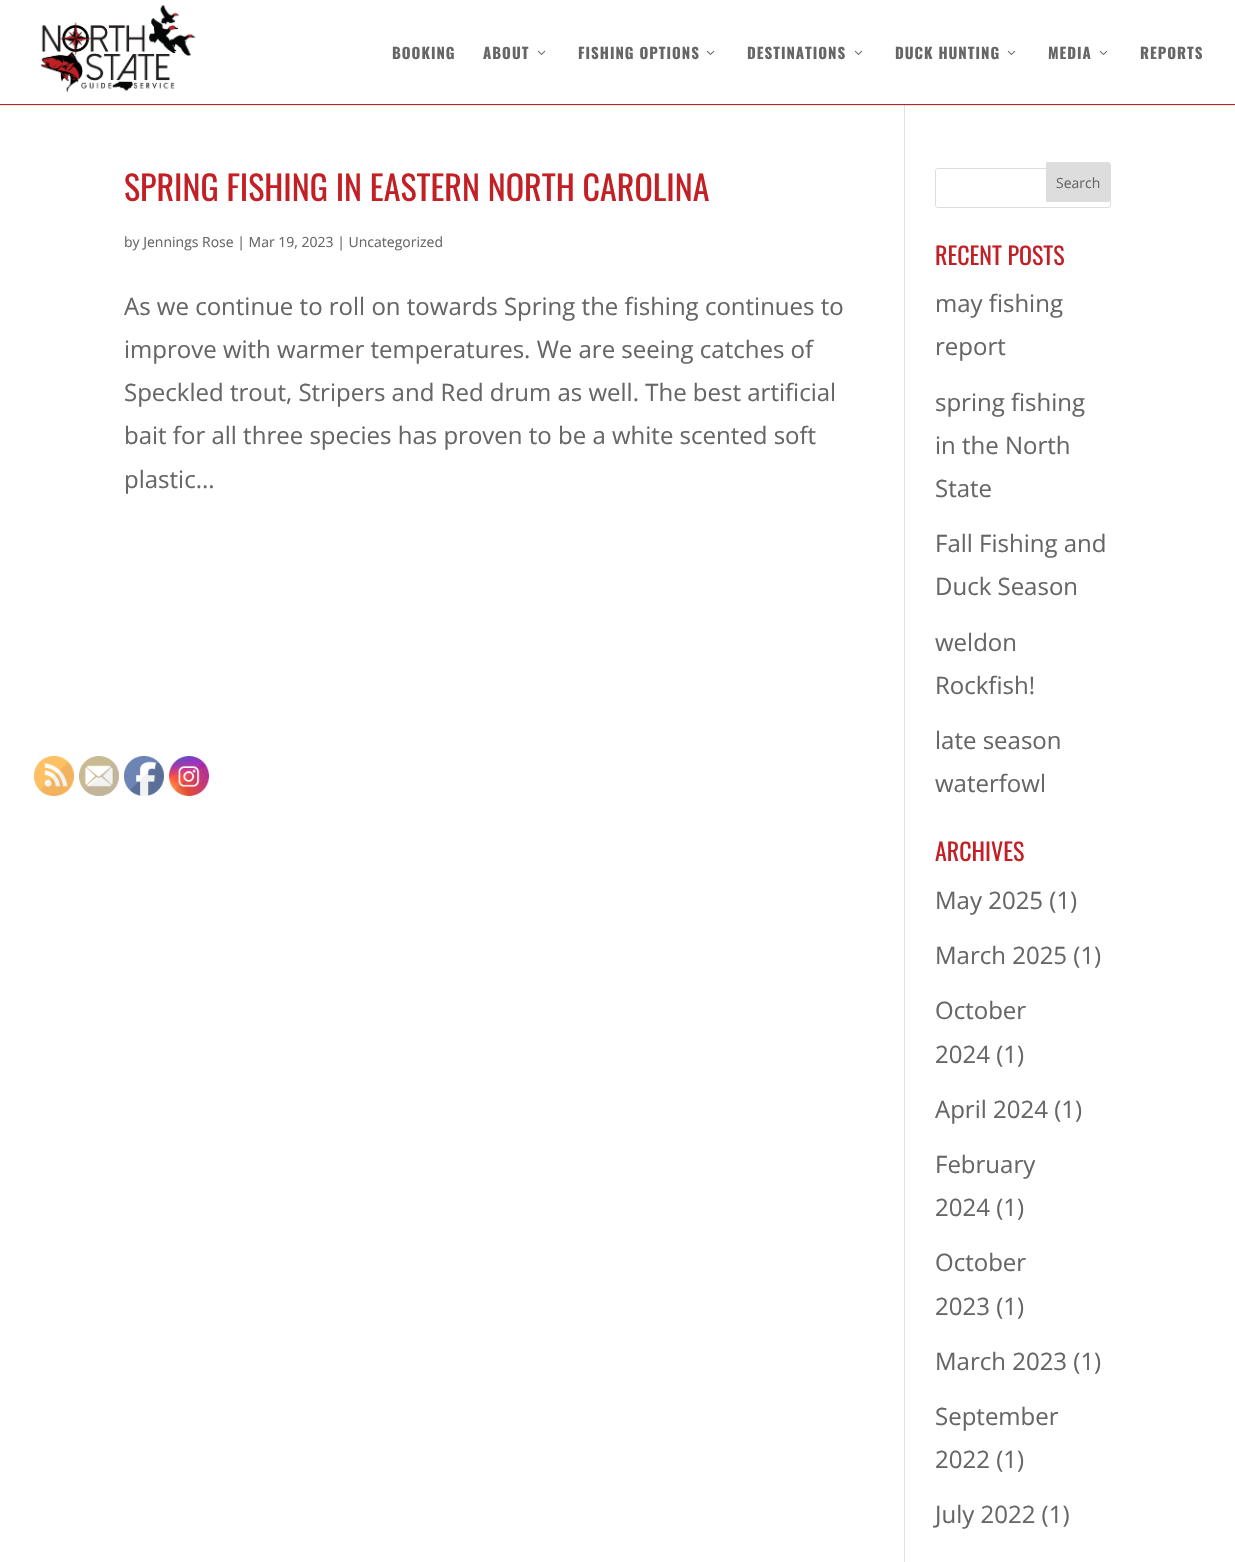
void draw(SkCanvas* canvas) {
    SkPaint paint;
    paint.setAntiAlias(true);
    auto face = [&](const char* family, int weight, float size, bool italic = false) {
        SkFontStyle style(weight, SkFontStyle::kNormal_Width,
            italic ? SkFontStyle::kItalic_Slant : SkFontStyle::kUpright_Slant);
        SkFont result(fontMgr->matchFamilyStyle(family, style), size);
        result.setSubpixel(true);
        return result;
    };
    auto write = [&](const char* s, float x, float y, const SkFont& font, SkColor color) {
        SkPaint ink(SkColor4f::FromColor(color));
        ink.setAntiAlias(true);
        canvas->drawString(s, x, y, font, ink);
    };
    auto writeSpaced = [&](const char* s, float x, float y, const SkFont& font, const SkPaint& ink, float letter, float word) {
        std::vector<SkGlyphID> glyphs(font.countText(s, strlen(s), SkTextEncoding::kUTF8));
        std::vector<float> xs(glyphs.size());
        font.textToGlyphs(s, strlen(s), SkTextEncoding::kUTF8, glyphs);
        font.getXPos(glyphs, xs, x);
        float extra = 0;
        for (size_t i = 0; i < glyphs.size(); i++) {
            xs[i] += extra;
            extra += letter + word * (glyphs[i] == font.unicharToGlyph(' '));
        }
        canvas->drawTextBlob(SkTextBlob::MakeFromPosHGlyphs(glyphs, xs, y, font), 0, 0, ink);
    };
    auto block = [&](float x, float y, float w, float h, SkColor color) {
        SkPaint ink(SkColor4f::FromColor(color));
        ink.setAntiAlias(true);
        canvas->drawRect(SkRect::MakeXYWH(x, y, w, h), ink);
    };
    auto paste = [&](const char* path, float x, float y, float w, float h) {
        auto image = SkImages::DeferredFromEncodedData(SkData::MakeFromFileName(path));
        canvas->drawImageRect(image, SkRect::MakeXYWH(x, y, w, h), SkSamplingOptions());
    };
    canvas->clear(SK_ColorWHITE);
    block(0, 105, 1235, 1, SkColorSetRGB(230, 230, 230));
    paste("pic1.png", 34, 756, 40, 40);
    paste("pic2.png", 79, 756, 40, 40);
    paste("pic3.png", 124, 756, 40, 40);
    paste("pic4.png", 169, 756, 40, 40);
    block(904, 104, 1, 1458, SkColorSetRGB(226, 226, 226));
    block(0, 104, 1235, 1, SkColorSetRGB(195, 32, 38));
    paste("pic5.png", 40, 4, 156, 89);
    auto kFont1 = face("Oswald", 700, 15);
    paint.setColor(SkColorSetRGB(102, 102, 102));
    writeSpaced("BOOKING", 392, 59, kFont1, paint, 1, 0);
    writeSpaced("ABOUT", 483, 59, kFont1, paint, 1, 0);
    paste("pic6.png", 537, 50, 9, 5);
    writeSpaced("FISHING OPTIONS", 578, 59, kFont1, paint, 1, 0);
    paste("pic6.png", 706, 50, 9, 5);
    writeSpaced("DESTINATIONS", 747, 59, kFont1, paint, 1, 0);
    paste("pic6.png", 854, 50, 9, 5);
    writeSpaced("DUCK HUNTING", 895, 59, kFont1, paint, 1, 0);
    paste("pic6.png", 1007, 50, 9, 5);
    writeSpaced("MEDIA", 1048, 59, kFont1, paint, 1, 0);
    paste("pic6.png", 1099, 50, 9, 5);
    writeSpaced("REPORTS", 1140, 59, kFont1, paint, 1, 0);
    block(904, 105, 1, 1, SkColorSetRGB(203, 203, 203));
    auto kFont2 = face("Oswald", 400, 34);
    write("SPRING FISHING IN EASTERN NORTH CAROLINA", 124, 201, kFont2, SkColorSetRGB(195, 32, 38));
    auto kFont3 = face("Open Sans", 400, 14);
    write("by Jennings Rose | Mar 19, 2023 | Uncategorized", 124, 247, kFont3, SkColorSetRGB(102, 102, 102));
    auto kFont4 = face("Open Sans", 400, 24);
    write("As we continue to roll on towards Spring the fishing continues to", 124, 315, kFont4, SkColorSetRGB(102, 102, 102));
    write("improve with warmer temperatures. We are seeing catches of", 124, 358, kFont4, SkColorSetRGB(102, 102, 102));
    write("Speckled trout, Stripers and Red drum as well. The best artificial", 124, 401, kFont4, SkColorSetRGB(102, 102, 102));
    write("bait for all three species has proven to be a white scented soft", 124, 444, kFont4, SkColorSetRGB(102, 102, 102));
    write("plastic...", 124, 488, kFont4, SkColorSetRGB(102, 102, 102));
    paint.setStyle(SkPaint::kStroke_Style);
    paint.setStrokeWidth(1);
    paint.setColor(SkColorSetRGB(221, 221, 221));
    canvas->drawRoundRect(SkRect::MakeXYWH(935.5f, 168.5f, 175, 39), 2.5f, 2.5f, paint);
    paint.setStyle(SkPaint::kFill_Style);
    canvas->drawPath(SkPathBuilder().moveTo(1046.5f, 162.5f).lineTo(1108, 162.5f).cubicTo(1109.5f, 162.5f, 1110.5f, 163.5f, 1110.5f, 165).lineTo(1110.5f, 199).cubicTo(1110.5f, 200.5f, 1109.5f, 201.5f, 1108, 201.5f).lineTo(1046.5f, 201.5f).close().detach(), paint);
    paint.setStyle(SkPaint::kStroke_Style);
    canvas->drawPath(SkPathBuilder().moveTo(1046.5f, 162.5f).lineTo(1108, 162.5f).cubicTo(1109.5f, 162.5f, 1110.5f, 163.5f, 1110.5f, 165).lineTo(1110.5f, 199).cubicTo(1110.5f, 200.5f, 1109.5f, 201.5f, 1108, 201.5f).lineTo(1046.5f, 201.5f).close().detach(), paint);
    write("Search", 1056, 188, kFont3, SkColorSetRGB(102, 102, 102));
    auto kFont5 = face("Oswald", 400, 24);
    write("RECENT POSTS", 935, 265, kFont5, SkColorSetRGB(195, 32, 38));
    write("may fishing", 935, 312, kFont4, SkColorSetRGB(102, 102, 102));
    write("report", 935, 355, kFont4, SkColorSetRGB(102, 102, 102));
    write("spring fishing", 935, 411, kFont4, SkColorSetRGB(102, 102, 102));
    write("in the North", 935, 454, kFont4, SkColorSetRGB(102, 102, 102));
    write("State", 935, 497, kFont4, SkColorSetRGB(102, 102, 102));
    write("Fall Fishing and", 935, 552, kFont4, SkColorSetRGB(102, 102, 102));
    write("Duck Season", 935, 595, kFont4, SkColorSetRGB(102, 102, 102));
    write("weldon", 935, 651, kFont4, SkColorSetRGB(102, 102, 102));
    write("Rockfish!", 935, 694, kFont4, SkColorSetRGB(102, 102, 102));
    write("late season", 935, 749, kFont4, SkColorSetRGB(102, 102, 102));
    write("waterfowl", 935, 792, kFont4, SkColorSetRGB(102, 102, 102));
    write("ARCHIVES", 935, 861, kFont5, SkColorSetRGB(195, 32, 38));
    write("May 2025 (1)", 935, 909, kFont4, SkColorSetRGB(102, 102, 102));
    write("March 2025 (1)", 935, 964, kFont4, SkColorSetRGB(102, 102, 102));
    write("October", 935, 1019, kFont4, SkColorSetRGB(102, 102, 102));
    write("2024 (1)", 935, 1063, kFont4, SkColorSetRGB(102, 102, 102));
    write("April 2024 (1)", 935, 1118, kFont4, SkColorSetRGB(102, 102, 102));
    write("February", 935, 1173, kFont4, SkColorSetRGB(102, 102, 102));
    write("2024 (1)", 935, 1216, kFont4, SkColorSetRGB(102, 102, 102));
    write("October", 935, 1271, kFont4, SkColorSetRGB(102, 102, 102));
    write("2023 (1)", 935, 1315, kFont4, SkColorSetRGB(102, 102, 102));
    write("March 2023 (1)", 935, 1370, kFont4, SkColorSetRGB(102, 102, 102));
    write("September", 935, 1425, kFont4, SkColorSetRGB(102, 102, 102));
    write("2022 (1)", 935, 1468, kFont4, SkColorSetRGB(102, 102, 102));
    write("July 2022 (1)", 935, 1523, kFont4, SkColorSetRGB(102, 102, 102));
}
